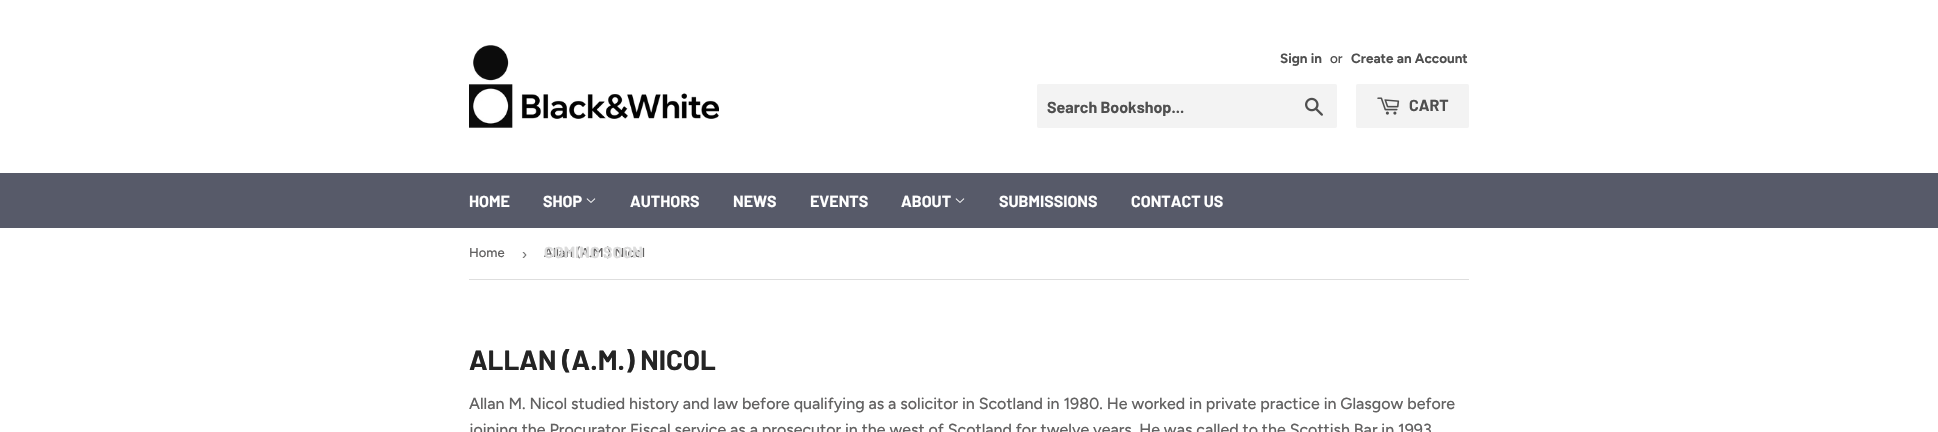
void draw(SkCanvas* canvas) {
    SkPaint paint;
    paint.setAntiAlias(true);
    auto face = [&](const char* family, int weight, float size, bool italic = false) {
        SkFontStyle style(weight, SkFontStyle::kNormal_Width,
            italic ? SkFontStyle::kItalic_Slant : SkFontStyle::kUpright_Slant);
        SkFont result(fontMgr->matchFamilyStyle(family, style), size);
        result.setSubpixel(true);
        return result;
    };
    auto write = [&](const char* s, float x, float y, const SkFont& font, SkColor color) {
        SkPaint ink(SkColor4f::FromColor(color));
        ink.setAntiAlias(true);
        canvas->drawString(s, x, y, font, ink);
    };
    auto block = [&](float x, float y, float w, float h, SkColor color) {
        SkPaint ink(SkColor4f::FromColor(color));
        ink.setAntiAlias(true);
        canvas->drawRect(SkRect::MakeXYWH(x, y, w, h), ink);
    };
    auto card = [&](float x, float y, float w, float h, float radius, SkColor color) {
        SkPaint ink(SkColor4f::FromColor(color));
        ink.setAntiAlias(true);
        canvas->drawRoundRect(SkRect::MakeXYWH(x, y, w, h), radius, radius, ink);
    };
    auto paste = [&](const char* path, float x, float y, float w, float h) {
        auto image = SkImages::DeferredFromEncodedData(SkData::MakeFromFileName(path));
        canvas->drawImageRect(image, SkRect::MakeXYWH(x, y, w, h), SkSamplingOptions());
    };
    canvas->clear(SK_ColorWHITE);
    paste("pic1.png", 469, 45, 250, 83);
    auto kFont1 = face("Figtree", 700, 13.5f);
    write("Sign in", 1280, 63, kFont1, SkColorSetRGB(79, 79, 79));
    auto kFont2 = face("Figtree", 500, 13.5f);
    write("or", 1330, 63, kFont2, SkColorSetRGB(79, 79, 79));
    write("Create an Account", 1351, 63, kFont1, SkColorSetRGB(79, 79, 79));
    card(1037, 84, 300, 44, 2, SkColorSetRGB(243, 243, 243));
    auto kFont3 = face("Barlow", 700, 16);
    write("Search Bookshop...", 1047, 113, kFont3, SkColorSetRGB(79, 79, 79));
    paste("pic2.png", 1305, 97, 18, 19);
    card(1356, 84, 113, 44, 2, SkColorSetRGB(243, 243, 243));
    paste("pic3.png", 1377, 97, 23, 18);
    write("CART", 1409, 111, kFont3, SkColorSetRGB(79, 79, 79));
    block(0, 173, 1938, 55, SkColorSetRGB(87, 90, 105));
    write("HOME", 469, 207, kFont3, SK_ColorWHITE);
    write("SHOP", 543, 207, kFont3, SK_ColorWHITE);
    paste("pic4.png", 586, 198, 10, 5);
    auto kFont4 = face("Figtree", 500, 13);
    write("Allan (A.M.) Nicol", 544, 257, kFont4, SkColorSetRGB(99, 98, 98));
    write("COMING SOON", 544, 258, kFont3, SkColorSetRGB(220, 220, 220));
    write("AUTHORS", 630, 207, kFont3, SK_ColorWHITE);
    write("NEWS", 733, 207, kFont3, SK_ColorWHITE);
    write("EVENTS", 810, 207, kFont3, SK_ColorWHITE);
    write("ABOUT", 901, 207, kFont3, SK_ColorWHITE);
    paste("pic4.png", 955, 198, 10, 5);
    write("SUBMISSIONS", 999, 207, kFont3, SK_ColorWHITE);
    write("CONTACT US", 1131, 207, kFont3, SK_ColorWHITE);
    block(469, 279, 1000, 1, SkColorSetRGB(222, 222, 222));
    write("Home", 469, 257, kFont4, SkColorSetRGB(99, 98, 98));
    auto kFont5 = face("Liberation Sans", 400, 15);
    write("›", 522, 259, kFont5, SkColorSetRGB(118, 118, 118));
    auto kFont6 = face("Barlow", 700, 27.75f);
    write("ALLAN (A.M.) NICOL", 469, 370, kFont6, SkColorSetRGB(36, 36, 36));
    auto kFont7 = face("Figtree", 500, 16);
    write("Allan M. Nicol studied history and law before qualifying as a solicitor in Scotland in 1980. He worked in private practice in Glasgow before", 469, 409, kFont7, SkColorSetRGB(99, 98, 98));
    write("joining the Procurator Fiscal service as a prosecutor in the west of Scotland for twelve years. He was called to the Scottish Bar in 1993", 469, 435, kFont7, SkColorSetRGB(99, 98, 98));
}
